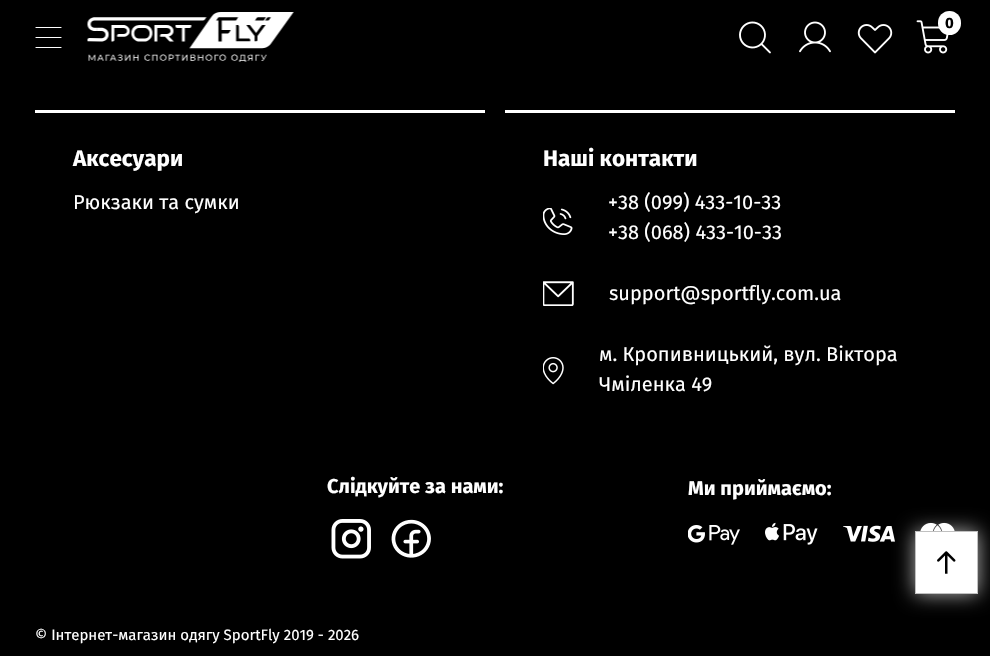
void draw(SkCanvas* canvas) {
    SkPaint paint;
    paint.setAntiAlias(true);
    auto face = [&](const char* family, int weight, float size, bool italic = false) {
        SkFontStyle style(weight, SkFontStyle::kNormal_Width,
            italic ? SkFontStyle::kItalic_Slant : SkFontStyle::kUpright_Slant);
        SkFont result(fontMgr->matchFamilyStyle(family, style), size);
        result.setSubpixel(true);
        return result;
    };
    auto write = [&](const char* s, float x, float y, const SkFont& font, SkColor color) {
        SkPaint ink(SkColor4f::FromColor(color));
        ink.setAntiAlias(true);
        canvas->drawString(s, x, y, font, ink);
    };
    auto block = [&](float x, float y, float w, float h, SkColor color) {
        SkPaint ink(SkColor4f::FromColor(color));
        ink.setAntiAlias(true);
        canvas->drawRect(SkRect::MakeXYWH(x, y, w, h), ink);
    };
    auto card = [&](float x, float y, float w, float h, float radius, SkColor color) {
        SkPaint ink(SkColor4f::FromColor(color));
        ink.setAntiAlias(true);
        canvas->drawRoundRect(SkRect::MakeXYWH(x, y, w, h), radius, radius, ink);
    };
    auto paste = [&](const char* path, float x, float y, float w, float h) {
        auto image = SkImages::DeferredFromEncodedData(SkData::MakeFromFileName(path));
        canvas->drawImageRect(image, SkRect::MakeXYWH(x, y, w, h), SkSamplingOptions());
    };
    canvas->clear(SK_ColorBLACK);
    paint.setStyle(SkPaint::kStroke_Style);
    paint.setStrokeWidth(1.2f);
    paint.setStrokeCap(SkPaint::kRound_Cap);
    paint.setColor(SK_ColorWHITE);
    canvas->drawPath(SkPathBuilder().moveTo(36, 27.5f).lineTo(61, 27.5f).moveTo(36, 37.5f).lineTo(61, 37.5f).moveTo(36, 47.5f).lineTo(61, 47.5f).detach(), paint);
    paste("pic1.png", 87, 12, 207, 50);
    paste("pic2.png", 739, 21, 32, 33);
    paste("pic3.png", 799, 21, 32, 32);
    paste("pic4.png", 857, 24, 36, 30);
    paste("pic5.png", 916, 20, 33, 34);
    card(938, 11, 23, 24, 11.5f, SK_ColorWHITE);
    auto kFont1 = face("Fira Sans", 700, 15);
    write("0", 945, 28, kFont1, SK_ColorBLACK);
    block(35, 110, 450, 3, SK_ColorWHITE);
    auto kFont2 = face("Fira Sans", 700, 22.5f);
    write("Аксесуари", 73, 166, kFont2, SK_ColorWHITE);
    auto kFont3 = face("Fira Sans", 400, 20);
    write("Рюкзаки та сумки", 73, 209, kFont3, SK_ColorWHITE);
    block(505, 110, 450, 3, SK_ColorWHITE);
    write("Наші контакти", 543, 166, kFont2, SK_ColorWHITE);
    paste("pic6.png", 543, 208, 30, 27);
    write("+38 (099) 433-10-33", 608, 209, kFont3, SK_ColorWHITE);
    write("+38 (068) 433-10-33", 608, 239, kFont3, SK_ColorWHITE);
    paste("pic7.png", 543, 281, 31, 25);
    write("support@sportfly.com.ua", 609, 300, kFont3, SK_ColorWHITE);
    paste("pic8.png", 543, 357, 21, 28);
    write("м. Кропивницький, вул. Віктора", 599, 361, kFont3, SK_ColorWHITE);
    write("Чміленка 49", 599, 391, kFont3, SK_ColorWHITE);
    auto kFont4 = face("Fira Sans", 700, 20);
    write("Слідкуйте за нами:", 327, 493, kFont4, SK_ColorWHITE);
    paste("pic9.png", 331, 519, 40, 40);
    paste("pic10.png", 391, 519, 40, 39);
    write("Ми приймаємо:", 688, 495, kFont4, SK_ColorWHITE);
    paste("pic11.png", 688, 525, 52, 20);
    paste("pic12.png", 765, 522, 53, 23);
    paste("pic13.png", 843, 525, 52, 17);
    paste("pic14.png", 920, 522, 35, 9);
    auto kFont5 = face("Fira Sans", 400, 15);
    write("© Інтернет-магазин одягу SportFly 2019 - 2026", 35, 640, kFont5, SK_ColorWHITE);
    paint.setStyle(SkPaint::kFill_Style);
    paint.setColor(SkColorSetARGB(179, 255, 255, 255));
    paint.setMaskFilter(SkMaskFilter::MakeBlur(kNormal_SkBlurStyle, 10));
    canvas->drawRoundRect(SkRect::MakeXYWH(915, 531, 63, 63), 1, 1, paint);
    paint.setMaskFilter(nullptr);
    card(915, 531, 63, 63, 1, SK_ColorWHITE);
    paste("pic15.png", 937, 551, 19, 23);
    paint.setStyle(SkPaint::kStroke_Style);
    paint.setStrokeWidth(1);
    paint.setStrokeCap(SkPaint::kButt_Cap);
    paint.setColor(SkColorSetRGB(192, 192, 192));
    canvas->drawRoundRect(SkRect::MakeXYWH(915.5f, 531.5f, 62, 62), 0.5f, 0.5f, paint);
}
